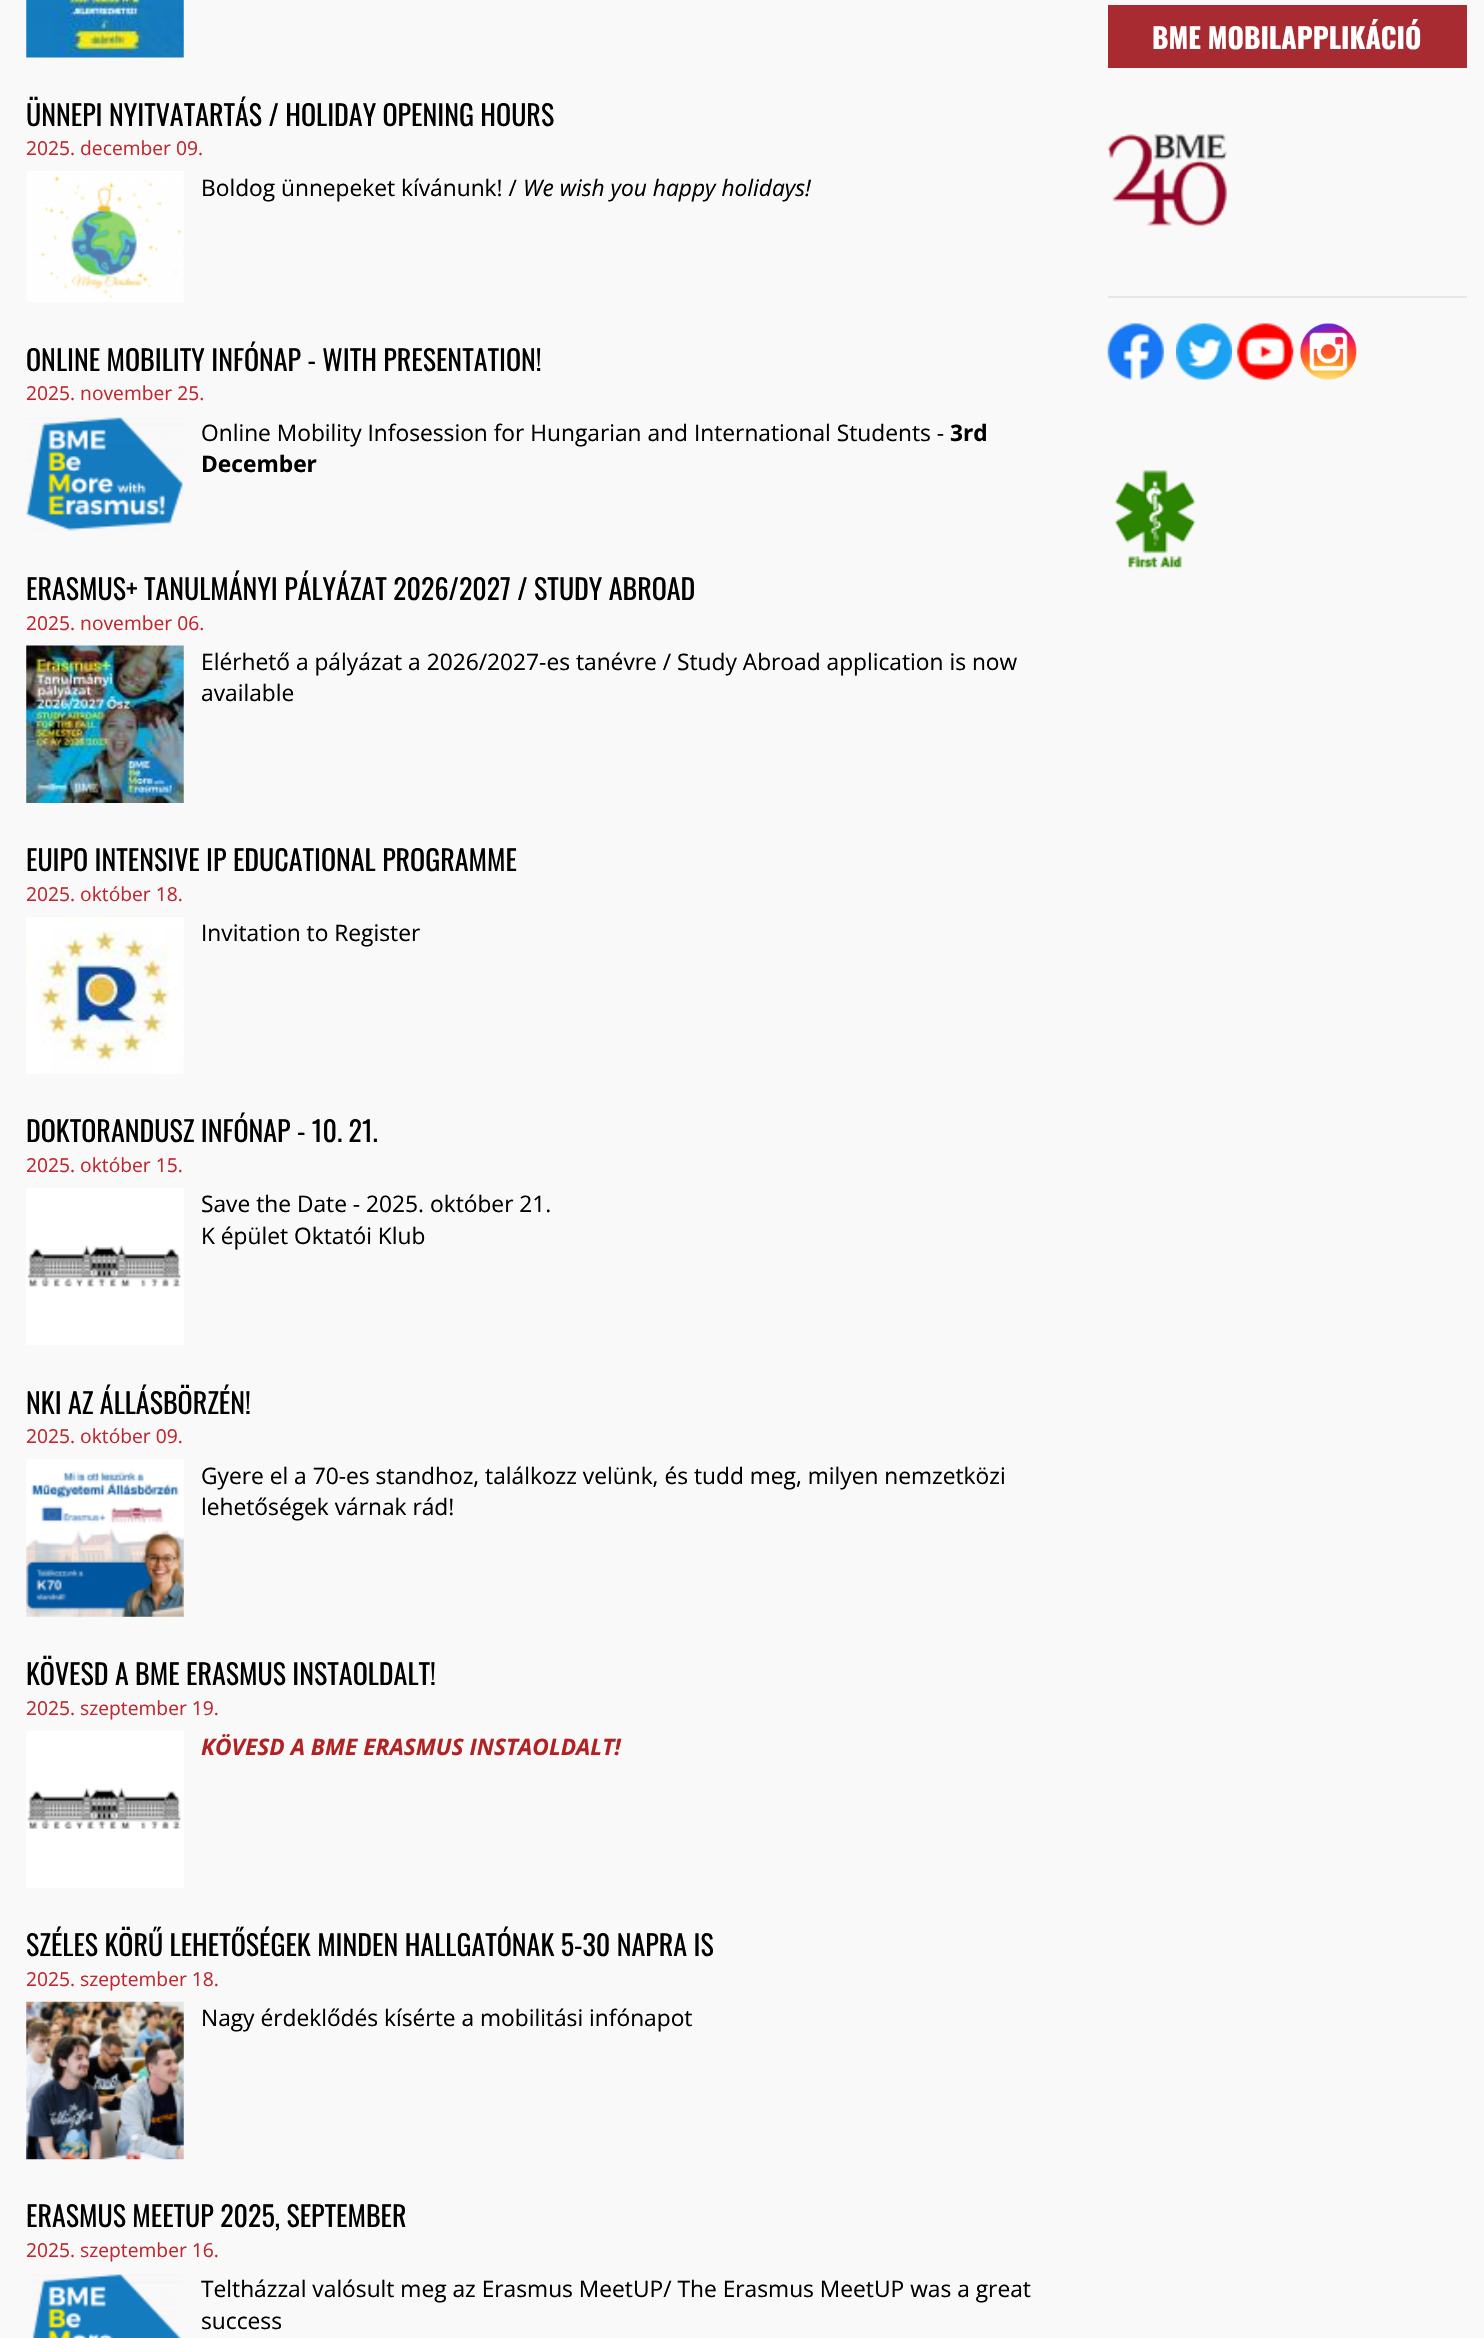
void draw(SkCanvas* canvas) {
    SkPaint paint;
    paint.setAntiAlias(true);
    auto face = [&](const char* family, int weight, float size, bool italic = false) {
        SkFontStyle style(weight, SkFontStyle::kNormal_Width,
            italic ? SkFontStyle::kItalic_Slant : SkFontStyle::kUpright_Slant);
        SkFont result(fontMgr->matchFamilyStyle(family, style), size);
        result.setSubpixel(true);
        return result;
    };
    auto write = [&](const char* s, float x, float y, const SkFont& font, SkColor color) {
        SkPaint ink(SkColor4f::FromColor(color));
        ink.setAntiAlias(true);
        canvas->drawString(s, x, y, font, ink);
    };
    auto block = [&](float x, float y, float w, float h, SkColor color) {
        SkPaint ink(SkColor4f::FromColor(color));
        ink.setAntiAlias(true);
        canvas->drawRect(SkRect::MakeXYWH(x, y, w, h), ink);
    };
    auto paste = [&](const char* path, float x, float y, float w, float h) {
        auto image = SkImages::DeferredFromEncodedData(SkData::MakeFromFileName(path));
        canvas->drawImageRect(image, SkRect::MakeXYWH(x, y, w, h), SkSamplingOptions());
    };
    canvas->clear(SkColorSetRGB(249, 249, 250));
    block(1108, 5, 359, 63, SkColorSetRGB(168, 43, 49));
    auto kFont1 = face("Oswald", 700, 28);
    write("BME MOBILAPPLIKÁCIÓ", 1152, 49, kFont1, SK_ColorWHITE);
    paste("pic1.png", 1107, 134, 120, 92);
    block(1108, 296, 359, 2, SkColorSetRGB(230, 230, 230));
    paste("pic2.png", 1107, 323, 57, 57);
    paste("pic3.png", 1176, 323, 56, 57);
    paste("pic4.png", 1237, 323, 57, 57);
    paste("pic5.png", 1300, 323, 57, 57);
    paste("pic6.png", 1114, 470, 82, 99);
    paste("pic7.png", 26, 0, 158, 58);
    auto kFont2 = face("Oswald", 400, 28);
    write("ÜNNEPI NYITVATARTÁS / HOLIDAY OPENING HOURS", 26, 126, kFont2, SK_ColorBLACK);
    auto kFont3 = face("Open Sans", 400, 19.25f);
    write("2025. december 09.", 26, 155, kFont3, SkColorSetRGB(193, 39, 45));
    paste("pic8.png", 26, 171, 158, 131);
    auto kFont4 = face("Open Sans", 400, 22.75f);
    write("Boldog ünnepeket kívánunk! /", 201, 196, kFont4, SK_ColorBLACK);
    auto kFont5 = face("Open Sans", 400, 22.75f, true);
    write("We wish you happy holidays!", 523, 196, kFont5, SK_ColorBLACK);
    write("ONLINE MOBILITY INFÓNAP - WITH PRESENTATION!", 26, 371, kFont2, SK_ColorBLACK);
    write("2025. november 25.", 26, 400, kFont3, SkColorSetRGB(193, 39, 45));
    paste("pic9.png", 26, 417, 158, 114);
    write("Online Mobility Infosession for Hungarian and International Students -", 201, 441, kFont4, SK_ColorBLACK);
    auto kFont6 = face("Open Sans", 700, 22.75f);
    write("3rd", 950, 441, kFont6, SK_ColorBLACK);
    write("December", 201, 472, kFont6, SK_ColorBLACK);
    write("ERASMUS+ TANULMÁNYI PÁLYÁZAT 2026/2027 / STUDY ABROAD", 26, 600, kFont2, SK_ColorBLACK);
    write("2025. november 06.", 26, 630, kFont3, SkColorSetRGB(193, 39, 45));
    paste("pic10.png", 26, 645, 158, 158);
    write("Elérhető a pályázat a 2026/2027-es tanévre / Study Abroad application is now", 201, 670, kFont4, SK_ColorBLACK);
    write("available", 201, 701, kFont4, SK_ColorBLACK);
    write("EUIPO INTENSIVE IP EDUCATIONAL PROGRAMME", 26, 871, kFont2, SK_ColorBLACK);
    write("2025. október 18.", 26, 901, kFont3, SkColorSetRGB(193, 39, 45));
    paste("pic11.png", 26, 917, 158, 157);
    write("Invitation to Register", 201, 941, kFont4, SK_ColorBLACK);
    write("DOKTORANDUSZ INFÓNAP - 10. 21.", 26, 1142, kFont2, SK_ColorBLACK);
    write("2025. október 15.", 26, 1172, kFont3, SkColorSetRGB(193, 39, 45));
    paste("pic12.png", 26, 1188, 158, 157);
    write("Save the Date - 2025. október 21.", 201, 1212, kFont4, SK_ColorBLACK);
    write("K épület Oktatói Klub", 201, 1244, kFont4, SK_ColorBLACK);
    write("NKI AZ ÁLLÁSBÖRZÉN!", 26, 1414, kFont2, SK_ColorBLACK);
    write("2025. október 09.", 26, 1443, kFont3, SkColorSetRGB(193, 39, 45));
    paste("pic13.png", 26, 1459, 158, 158);
    write("Gyere el a 70-es standhoz, találkozz velünk, és tudd meg, milyen nemzetközi", 201, 1484, kFont4, SK_ColorBLACK);
    write("lehetőségek várnak rád!", 201, 1515, kFont4, SK_ColorBLACK);
    write("KÖVESD A BME ERASMUS INSTAOLDALT!", 26, 1685, kFont2, SK_ColorBLACK);
    write("2025. szeptember 19.", 26, 1715, kFont3, SkColorSetRGB(193, 39, 45));
    paste("pic14.png", 26, 1731, 158, 157);
    auto kFont7 = face("Open Sans", 700, 22.75f, true);
    write("KÖVESD A BME ERASMUS INSTAOLDALT!", 201, 1755, kFont7, SkColorSetRGB(178, 34, 34));
    write("SZÉLES KÖRŰ LEHETŐSÉGEK MINDEN HALLGATÓNAK 5-30 NAPRA IS", 26, 1956, kFont2, SK_ColorBLACK);
    write("2025. szeptember 18.", 26, 1986, kFont3, SkColorSetRGB(193, 39, 45));
    paste("pic15.png", 26, 2001, 158, 159);
    write("Nagy érdeklődés kísérte a mobilitási infónapot", 201, 2026, kFont4, SK_ColorBLACK);
    write("ERASMUS MEETUP 2025, SEPTEMBER", 26, 2227, kFont2, SK_ColorBLACK);
    write("2025. szeptember 16.", 26, 2257, kFont3, SkColorSetRGB(193, 39, 45));
    paste("pic16.png", 32, 2274, 150, 64);
    write("Teltházzal valósult meg az Erasmus MeetUP/ The Erasmus MeetUP was a great", 201, 2297, kFont4, SK_ColorBLACK);
    write("success", 201, 2329, kFont4, SK_ColorBLACK);
}
